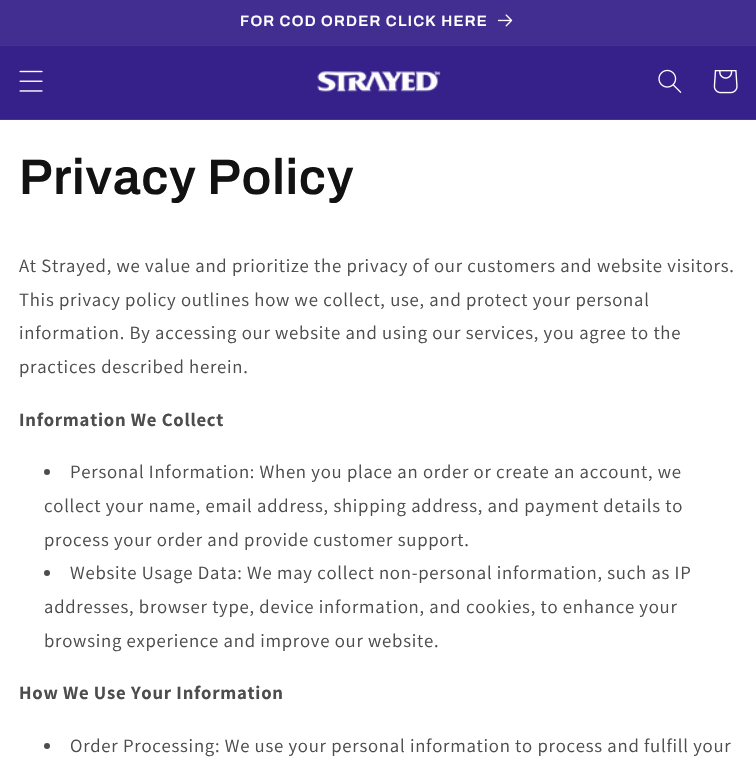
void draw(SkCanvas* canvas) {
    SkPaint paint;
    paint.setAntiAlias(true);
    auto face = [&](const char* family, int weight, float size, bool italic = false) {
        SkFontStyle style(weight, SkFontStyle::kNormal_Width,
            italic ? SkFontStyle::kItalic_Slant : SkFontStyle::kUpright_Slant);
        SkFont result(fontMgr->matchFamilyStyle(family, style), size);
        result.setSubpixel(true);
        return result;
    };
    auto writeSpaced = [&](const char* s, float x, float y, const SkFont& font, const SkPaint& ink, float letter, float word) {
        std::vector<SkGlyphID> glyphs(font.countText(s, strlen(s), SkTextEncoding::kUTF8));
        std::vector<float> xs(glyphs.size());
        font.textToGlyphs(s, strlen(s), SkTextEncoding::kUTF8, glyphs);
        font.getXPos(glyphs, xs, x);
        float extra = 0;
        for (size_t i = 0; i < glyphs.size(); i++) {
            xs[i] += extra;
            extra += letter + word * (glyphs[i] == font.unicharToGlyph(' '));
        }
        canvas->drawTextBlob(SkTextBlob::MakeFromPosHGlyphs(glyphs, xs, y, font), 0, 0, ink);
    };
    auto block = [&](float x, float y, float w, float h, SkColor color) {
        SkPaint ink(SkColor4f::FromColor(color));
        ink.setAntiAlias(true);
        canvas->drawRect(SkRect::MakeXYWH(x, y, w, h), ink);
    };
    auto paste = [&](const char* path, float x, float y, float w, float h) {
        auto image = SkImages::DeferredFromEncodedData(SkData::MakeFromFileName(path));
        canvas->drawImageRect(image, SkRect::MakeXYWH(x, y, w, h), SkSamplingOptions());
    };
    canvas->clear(SK_ColorWHITE);
    block(0, 45, 756, 1, SkColorSetRGB(70, 50, 146));
    block(0, 0, 756, 45, SkColorSetRGB(66, 45, 144));
    auto kFont1 = face("Archivo", 600, 15);
    paint.setColor(SK_ColorWHITE);
    writeSpaced("FOR COD ORDER CLICK HERE", 240, 26, kFont1, paint, 1.25f, 0);
    paste("pic1.png", 498, 14, 15, 13);
    block(0, 46, 756, 73, SkColorSetRGB(54, 32, 137));
    block(0, 119, 756, 1, SkColorSetRGB(70, 50, 146));
    paste("pic2.png", 19, 70, 24, 22);
    paste("pic3.png", 317, 71, 124, 21);
    paste("pic4.png", 658, 69, 24, 24);
    paste("pic5.png", 713, 70, 25, 24);
    auto kFont2 = face("Archivo", 600, 50);
    paint.setColor(SkColorSetRGB(18, 18, 18));
    writeSpaced("Privacy Policy", 19, 194, kFont2, paint, 0.75f, 0);
    auto kFont3 = face("Assistant", 400, 18.75f);
    paint.setColor(SkColorSetRGB(77, 77, 77));
    writeSpaced("At Strayed, we value and prioritize the privacy of our customers and website visitors.", 19, 272, kFont3, paint, 0.75f, 0);
    writeSpaced("This privacy policy outlines how we collect, use, and protect your personal", 19, 306, kFont3, paint, 0.75f, 0);
    writeSpaced("information. By accessing our website and using our services, you agree to the", 19, 339, kFont3, paint, 0.75f, 0);
    writeSpaced("practices described herein.", 19, 373, kFont3, paint, 0.75f, 0);
    auto kFont4 = face("Assistant", 700, 18.75f);
    writeSpaced("Information We Collect", 19, 426, kFont4, paint, 0.75f, 0);
    canvas->drawCircle(47, 472, 3, paint);
    writeSpaced("Personal Information: When you place an order or create an account, we", 70, 478, kFont3, paint, 0.75f, 0);
    writeSpaced("collect your name, email address, shipping address, and payment details to", 44, 512, kFont3, paint, 0.75f, 0);
    writeSpaced("process your order and provide customer support.", 44, 546, kFont3, paint, 0.75f, 0);
    canvas->drawCircle(47, 573, 3, paint);
    writeSpaced("Website Usage Data: We may collect non-personal information, such as IP", 70, 579, kFont3, paint, 0.75f, 0);
    writeSpaced("addresses, browser type, device information, and cookies, to enhance your", 44, 613, kFont3, paint, 0.75f, 0);
    writeSpaced("browsing experience and improve our website.", 44, 647, kFont3, paint, 0.75f, 0);
    writeSpaced("How We Use Your Information", 19, 699, kFont4, paint, 0.75f, 0);
    canvas->drawCircle(47, 746, 3, paint);
    writeSpaced("Order Processing: We use your personal information to process and fulfill your", 70, 752, kFont3, paint, 0.75f, 0);
}
